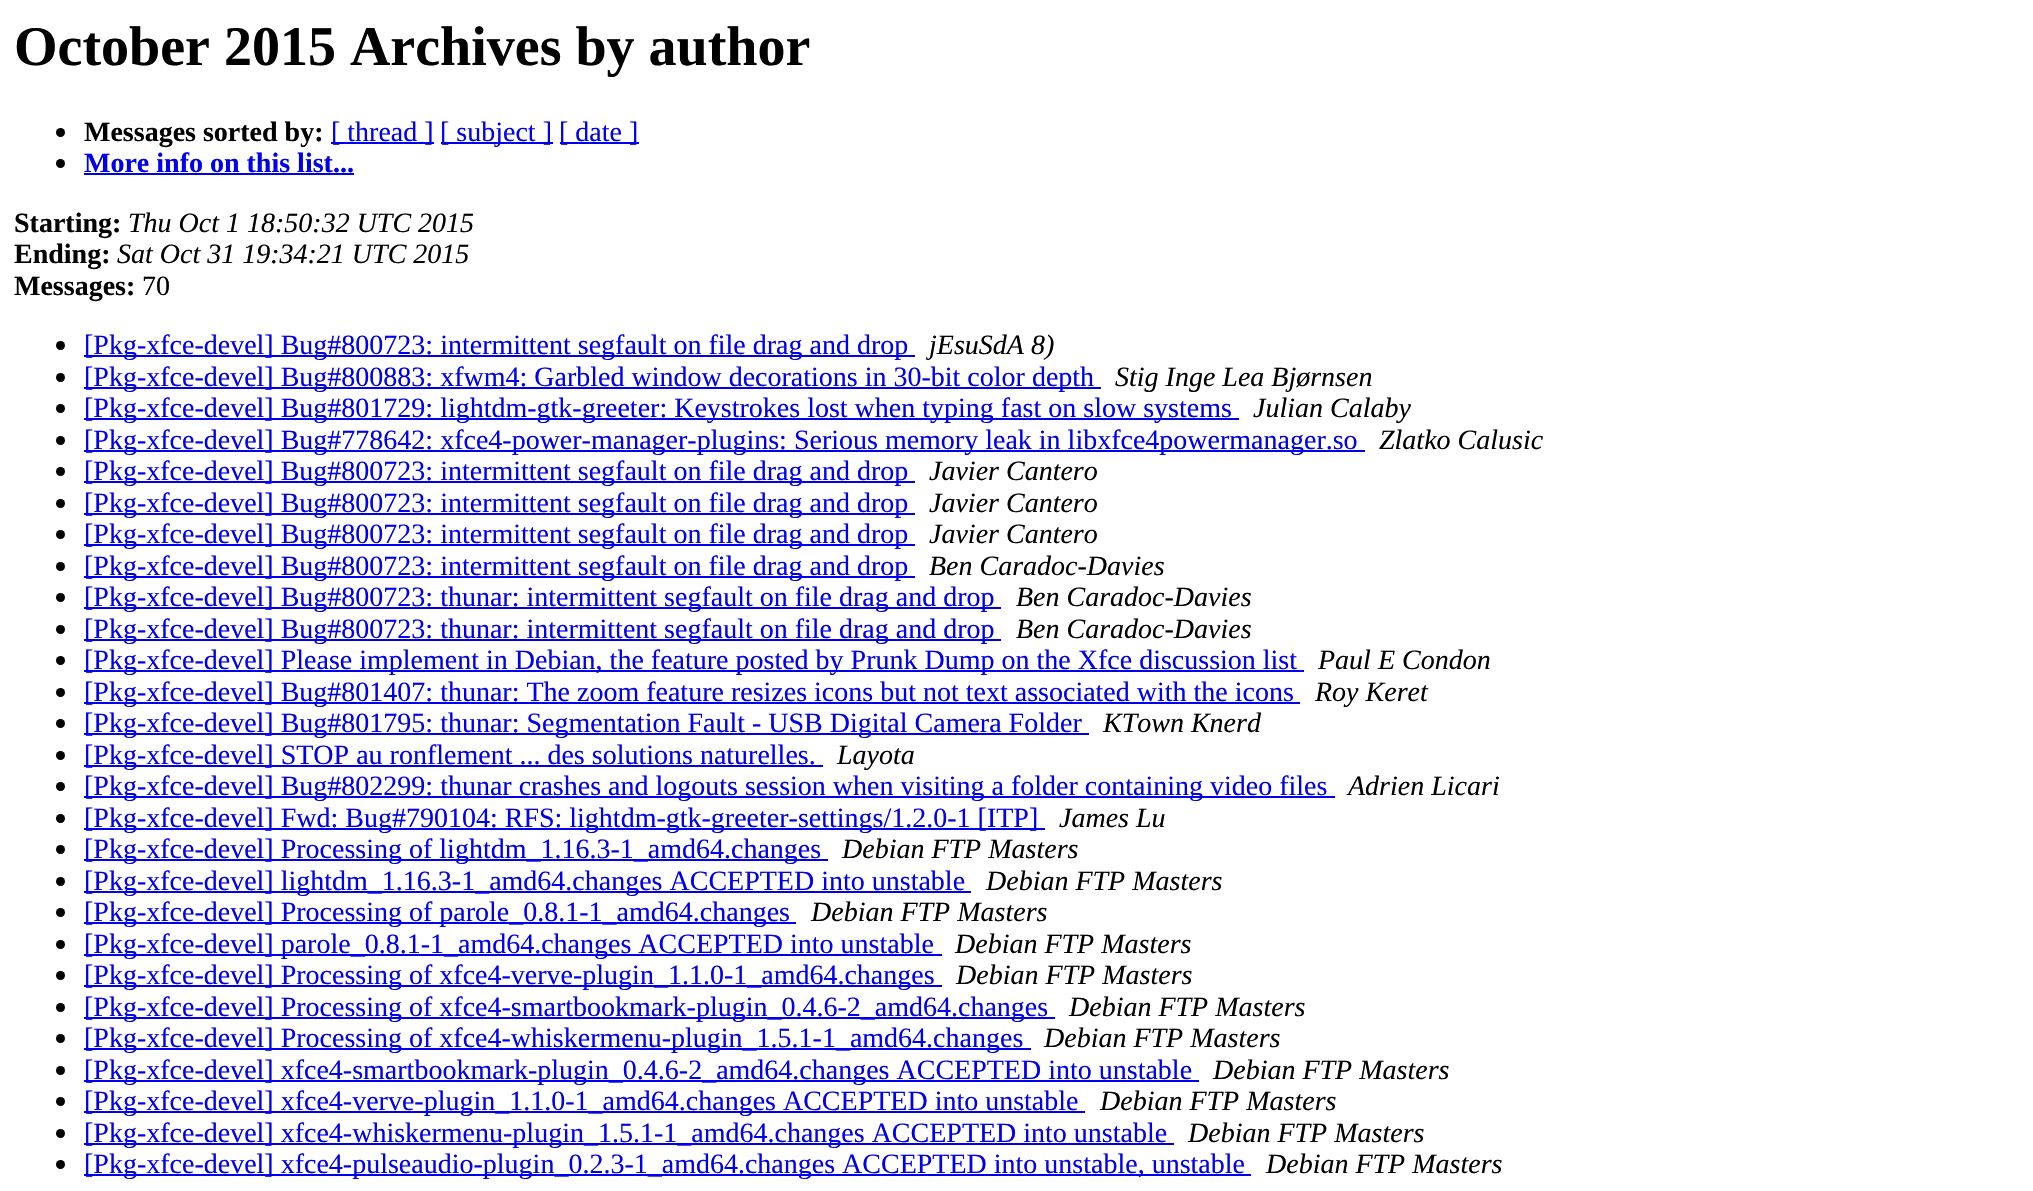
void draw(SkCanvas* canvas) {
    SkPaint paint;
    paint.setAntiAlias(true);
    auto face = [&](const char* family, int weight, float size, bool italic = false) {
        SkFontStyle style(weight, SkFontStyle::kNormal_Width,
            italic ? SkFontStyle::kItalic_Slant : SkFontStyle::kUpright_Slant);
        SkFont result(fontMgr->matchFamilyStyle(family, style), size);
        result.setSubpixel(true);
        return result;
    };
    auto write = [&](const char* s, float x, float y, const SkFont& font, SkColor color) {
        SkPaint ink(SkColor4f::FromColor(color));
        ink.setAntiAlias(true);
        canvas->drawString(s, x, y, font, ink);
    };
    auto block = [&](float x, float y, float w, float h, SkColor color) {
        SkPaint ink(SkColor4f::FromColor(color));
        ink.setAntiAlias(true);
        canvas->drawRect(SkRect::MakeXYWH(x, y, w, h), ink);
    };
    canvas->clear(SK_ColorWHITE);
    auto kFont1 = face("Liberation Serif", 700, 56);
    write("October 2015 Archives by author", 14, 65, kFont1, SK_ColorBLACK);
    paint.setColor(SK_ColorBLACK);
    canvas->drawCircle(60.5f, 132.5f, 4.5f, paint);
    auto kFont2 = face("Liberation Serif", 700, 28);
    write("Messages sorted by:", 84, 141, kFont2, SK_ColorBLACK);
    block(331, 142, 103, 2, SkColorSetRGB(0, 0, 238));
    auto kFont3 = face("Liberation Serif", 400, 28);
    write("[ thread ]", 331, 141, kFont3, SkColorSetRGB(0, 0, 238));
    block(441, 142, 112, 2, SkColorSetRGB(0, 0, 238));
    write("[ subject ]", 440, 141, kFont3, SkColorSetRGB(0, 0, 238));
    block(560, 142, 79, 2, SkColorSetRGB(0, 0, 238));
    write("[ date ]", 559, 141, kFont3, SkColorSetRGB(0, 0, 238));
    canvas->drawCircle(60.5f, 163.5f, 4.5f, paint);
    write("More info on this list...", 84, 172, kFont2, SkColorSetRGB(0, 0, 238));
    block(84, 173, 270, 2, SkColorSetRGB(0, 0, 238));
    write("Starting:", 14, 232, kFont2, SK_ColorBLACK);
    auto kFont4 = face("Liberation Serif", 400, 28, true);
    write("Thu Oct 1 18:50:32 UTC 2015", 128, 232, kFont4, SK_ColorBLACK);
    write("Ending:", 14, 263, kFont2, SK_ColorBLACK);
    write("Sat Oct 31 19:34:21 UTC 2015", 117, 263, kFont4, SK_ColorBLACK);
    write("Messages:", 14, 295, kFont2, SK_ColorBLACK);
    write("70", 142, 295, kFont3, SK_ColorBLACK);
    canvas->drawCircle(60.5f, 345.5f, 4.5f, paint);
    block(84, 355, 831, 2, SkColorSetRGB(0, 0, 238));
    write("[Pkg-xfce-devel] Bug#800723: intermittent segfault on file drag and drop", 84, 354, kFont3, SkColorSetRGB(0, 0, 238));
    write("jEsuSdA 8)", 929, 354, kFont4, SK_ColorBLACK);
    canvas->drawCircle(60.5f, 377.5f, 4.5f, paint);
    block(84, 387, 1017, 2, SkColorSetRGB(0, 0, 238));
    write("[Pkg-xfce-devel] Bug#800883: xfwm4: Garbled window decorations in 30-bit color depth", 84, 386, kFont3, SkColorSetRGB(0, 0, 238));
    write("Stig Inge Lea Bjørnsen", 1115, 386, kFont4, SK_ColorBLACK);
    canvas->drawCircle(60.5f, 408.5f, 4.5f, paint);
    block(84, 418, 1155, 2, SkColorSetRGB(0, 0, 238));
    write("[Pkg-xfce-devel] Bug#801729: lightdm-gtk-greeter: Keystrokes lost when typing fast on slow systems", 84, 417, kFont3, SkColorSetRGB(0, 0, 238));
    write("Julian Calaby", 1253, 417, kFont4, SK_ColorBLACK);
    canvas->drawCircle(60.5f, 440.5f, 4.5f, paint);
    block(84, 450, 1281, 2, SkColorSetRGB(0, 0, 238));
    write("[Pkg-xfce-devel] Bug#778642: xfce4-power-manager-plugins: Serious memory leak in libxfce4powermanager.so", 84, 449, kFont3, SkColorSetRGB(0, 0, 238));
    write("Zlatko Calusic", 1379, 449, kFont4, SK_ColorBLACK);
    canvas->drawCircle(60.5f, 471.5f, 4.5f, paint);
    block(84, 481, 831, 2, SkColorSetRGB(0, 0, 238));
    write("[Pkg-xfce-devel] Bug#800723: intermittent segfault on file drag and drop", 84, 480, kFont3, SkColorSetRGB(0, 0, 238));
    write("Javier Cantero", 929, 480, kFont4, SK_ColorBLACK);
    canvas->drawCircle(60.5f, 503.5f, 4.5f, paint);
    block(84, 513, 831, 2, SkColorSetRGB(0, 0, 238));
    write("[Pkg-xfce-devel] Bug#800723: intermittent segfault on file drag and drop", 84, 512, kFont3, SkColorSetRGB(0, 0, 238));
    write("Javier Cantero", 929, 512, kFont4, SK_ColorBLACK);
    canvas->drawCircle(60.5f, 534.5f, 4.5f, paint);
    block(84, 544, 831, 2, SkColorSetRGB(0, 0, 238));
    write("[Pkg-xfce-devel] Bug#800723: intermittent segfault on file drag and drop", 84, 543, kFont3, SkColorSetRGB(0, 0, 238));
    write("Javier Cantero", 929, 543, kFont4, SK_ColorBLACK);
    canvas->drawCircle(60.5f, 566.5f, 4.5f, paint);
    block(84, 576, 831, 2, SkColorSetRGB(0, 0, 238));
    write("[Pkg-xfce-devel] Bug#800723: intermittent segfault on file drag and drop", 84, 575, kFont3, SkColorSetRGB(0, 0, 238));
    write("Ben Caradoc-Davies", 929, 575, kFont4, SK_ColorBLACK);
    canvas->drawCircle(60.5f, 597.5f, 4.5f, paint);
    block(84, 607, 917, 2, SkColorSetRGB(0, 0, 238));
    write("[Pkg-xfce-devel] Bug#800723: thunar: intermittent segfault on file drag and drop", 84, 606, kFont3, SkColorSetRGB(0, 0, 238));
    write("Ben Caradoc-Davies", 1016, 606, kFont4, SK_ColorBLACK);
    canvas->drawCircle(60.5f, 629.5f, 4.5f, paint);
    block(84, 639, 917, 2, SkColorSetRGB(0, 0, 238));
    write("[Pkg-xfce-devel] Bug#800723: thunar: intermittent segfault on file drag and drop", 84, 638, kFont3, SkColorSetRGB(0, 0, 238));
    write("Ben Caradoc-Davies", 1016, 638, kFont4, SK_ColorBLACK);
    canvas->drawCircle(60.5f, 660.5f, 4.5f, paint);
    block(84, 670, 1220, 2, SkColorSetRGB(0, 0, 238));
    write("[Pkg-xfce-devel] Please implement in Debian, the feature posted by Prunk Dump on the Xfce discussion list", 84, 669, kFont3, SkColorSetRGB(0, 0, 238));
    write("Paul E Condon", 1318, 669, kFont4, SK_ColorBLACK);
    canvas->drawCircle(60.5f, 692.5f, 4.5f, paint);
    block(84, 702, 1216, 2, SkColorSetRGB(0, 0, 238));
    write("[Pkg-xfce-devel] Bug#801407: thunar: The zoom feature resizes icons but not text associated with the icons", 84, 701, kFont3, SkColorSetRGB(0, 0, 238));
    write("Roy Keret", 1315, 701, kFont4, SK_ColorBLACK);
    canvas->drawCircle(60.5f, 723.5f, 4.5f, paint);
    block(84, 733, 1005, 2, SkColorSetRGB(0, 0, 238));
    write("[Pkg-xfce-devel] Bug#801795: thunar: Segmentation Fault - USB Digital Camera Folder", 84, 732, kFont3, SkColorSetRGB(0, 0, 238));
    write("KTown Knerd", 1103, 732, kFont4, SK_ColorBLACK);
    canvas->drawCircle(60.5f, 755.5f, 4.5f, paint);
    block(84, 765, 739, 2, SkColorSetRGB(0, 0, 238));
    write("[Pkg-xfce-devel] STOP au ronflement ... des solutions naturelles.", 84, 764, kFont3, SkColorSetRGB(0, 0, 238));
    write("Layota", 837, 764, kFont4, SK_ColorBLACK);
    canvas->drawCircle(60.5f, 786.5f, 4.5f, paint);
    block(84, 796, 1251, 2, SkColorSetRGB(0, 0, 238));
    write("[Pkg-xfce-devel] Bug#802299: thunar crashes and logouts session when visiting a folder containing video files", 84, 795, kFont3, SkColorSetRGB(0, 0, 238));
    write("Adrien Licari", 1348, 795, kFont4, SK_ColorBLACK);
    canvas->drawCircle(60.5f, 818.5f, 4.5f, paint);
    block(84, 828, 961, 2, SkColorSetRGB(0, 0, 238));
    write("[Pkg-xfce-devel] Fwd: Bug#790104: RFS: lightdm-gtk-greeter-settings/1.2.0-1 [ITP]", 84, 827, kFont3, SkColorSetRGB(0, 0, 238));
    write("James Lu", 1059, 827, kFont4, SK_ColorBLACK);
    canvas->drawCircle(60.5f, 849.5f, 4.5f, paint);
    block(84, 859, 744, 2, SkColorSetRGB(0, 0, 238));
    write("[Pkg-xfce-devel] Processing of lightdm_1.16.3-1_amd64.changes", 84, 858, kFont3, SkColorSetRGB(0, 0, 238));
    write("Debian FTP Masters", 842, 858, kFont4, SK_ColorBLACK);
    canvas->drawCircle(60.5f, 881.5f, 4.5f, paint);
    block(84, 891, 887, 2, SkColorSetRGB(0, 0, 238));
    write("[Pkg-xfce-devel] lightdm_1.16.3-1_amd64.changes ACCEPTED into unstable", 84, 890, kFont3, SkColorSetRGB(0, 0, 238));
    write("Debian FTP Masters", 986, 890, kFont4, SK_ColorBLACK);
    canvas->drawCircle(60.5f, 912.5f, 4.5f, paint);
    block(84, 922, 712, 2, SkColorSetRGB(0, 0, 238));
    write("[Pkg-xfce-devel] Processing of parole_0.8.1-1_amd64.changes", 84, 921, kFont3, SkColorSetRGB(0, 0, 238));
    write("Debian FTP Masters", 811, 921, kFont4, SK_ColorBLACK);
    canvas->drawCircle(60.5f, 944.5f, 4.5f, paint);
    block(84, 954, 858, 2, SkColorSetRGB(0, 0, 238));
    write("[Pkg-xfce-devel] parole_0.8.1-1_amd64.changes ACCEPTED into unstable", 84, 953, kFont3, SkColorSetRGB(0, 0, 238));
    write("Debian FTP Masters", 955, 953, kFont4, SK_ColorBLACK);
    canvas->drawCircle(60.5f, 975.5f, 4.5f, paint);
    block(84, 985, 858, 2, SkColorSetRGB(0, 0, 238));
    write("[Pkg-xfce-devel] Processing of xfce4-verve-plugin_1.1.0-1_amd64.changes", 84, 984, kFont3, SkColorSetRGB(0, 0, 238));
    write("Debian FTP Masters", 956, 984, kFont4, SK_ColorBLACK);
    canvas->drawCircle(60.5f, 1007.5f, 4.5f, paint);
    block(84, 1017, 971, 2, SkColorSetRGB(0, 0, 238));
    write("[Pkg-xfce-devel] Processing of xfce4-smartbookmark-plugin_0.4.6-2_amd64.changes", 84, 1016, kFont3, SkColorSetRGB(0, 0, 238));
    write("Debian FTP Masters", 1069, 1016, kFont4, SK_ColorBLACK);
    canvas->drawCircle(60.5f, 1038.5f, 4.5f, paint);
    block(84, 1048, 947, 2, SkColorSetRGB(0, 0, 238));
    write("[Pkg-xfce-devel] Processing of xfce4-whiskermenu-plugin_1.5.1-1_amd64.changes", 84, 1047, kFont3, SkColorSetRGB(0, 0, 238));
    write("Debian FTP Masters", 1044, 1047, kFont4, SK_ColorBLACK);
    canvas->drawCircle(60.5f, 1070.5f, 4.5f, paint);
    block(84, 1080, 1115, 2, SkColorSetRGB(0, 0, 238));
    write("[Pkg-xfce-devel] xfce4-smartbookmark-plugin_0.4.6-2_amd64.changes ACCEPTED into unstable", 84, 1079, kFont3, SkColorSetRGB(0, 0, 238));
    write("Debian FTP Masters", 1213, 1079, kFont4, SK_ColorBLACK);
    canvas->drawCircle(60.5f, 1101.5f, 4.5f, paint);
    block(84, 1111, 1001, 2, SkColorSetRGB(0, 0, 238));
    write("[Pkg-xfce-devel] xfce4-verve-plugin_1.1.0-1_amd64.changes ACCEPTED into unstable", 84, 1110, kFont3, SkColorSetRGB(0, 0, 238));
    write("Debian FTP Masters", 1100, 1110, kFont4, SK_ColorBLACK);
    canvas->drawCircle(60.5f, 1133.5f, 4.5f, paint);
    block(84, 1143, 1090, 2, SkColorSetRGB(0, 0, 238));
    write("[Pkg-xfce-devel] xfce4-whiskermenu-plugin_1.5.1-1_amd64.changes ACCEPTED into unstable", 84, 1142, kFont3, SkColorSetRGB(0, 0, 238));
    write("Debian FTP Masters", 1188, 1142, kFont4, SK_ColorBLACK);
    canvas->drawCircle(60.5f, 1164.5f, 4.5f, paint);
    block(84, 1174, 1167, 2, SkColorSetRGB(0, 0, 238));
    write("[Pkg-xfce-devel] xfce4-pulseaudio-plugin_0.2.3-1_amd64.changes ACCEPTED into unstable, unstable", 84, 1173, kFont3, SkColorSetRGB(0, 0, 238));
    write("Debian FTP Masters", 1266, 1173, kFont4, SK_ColorBLACK);
}
